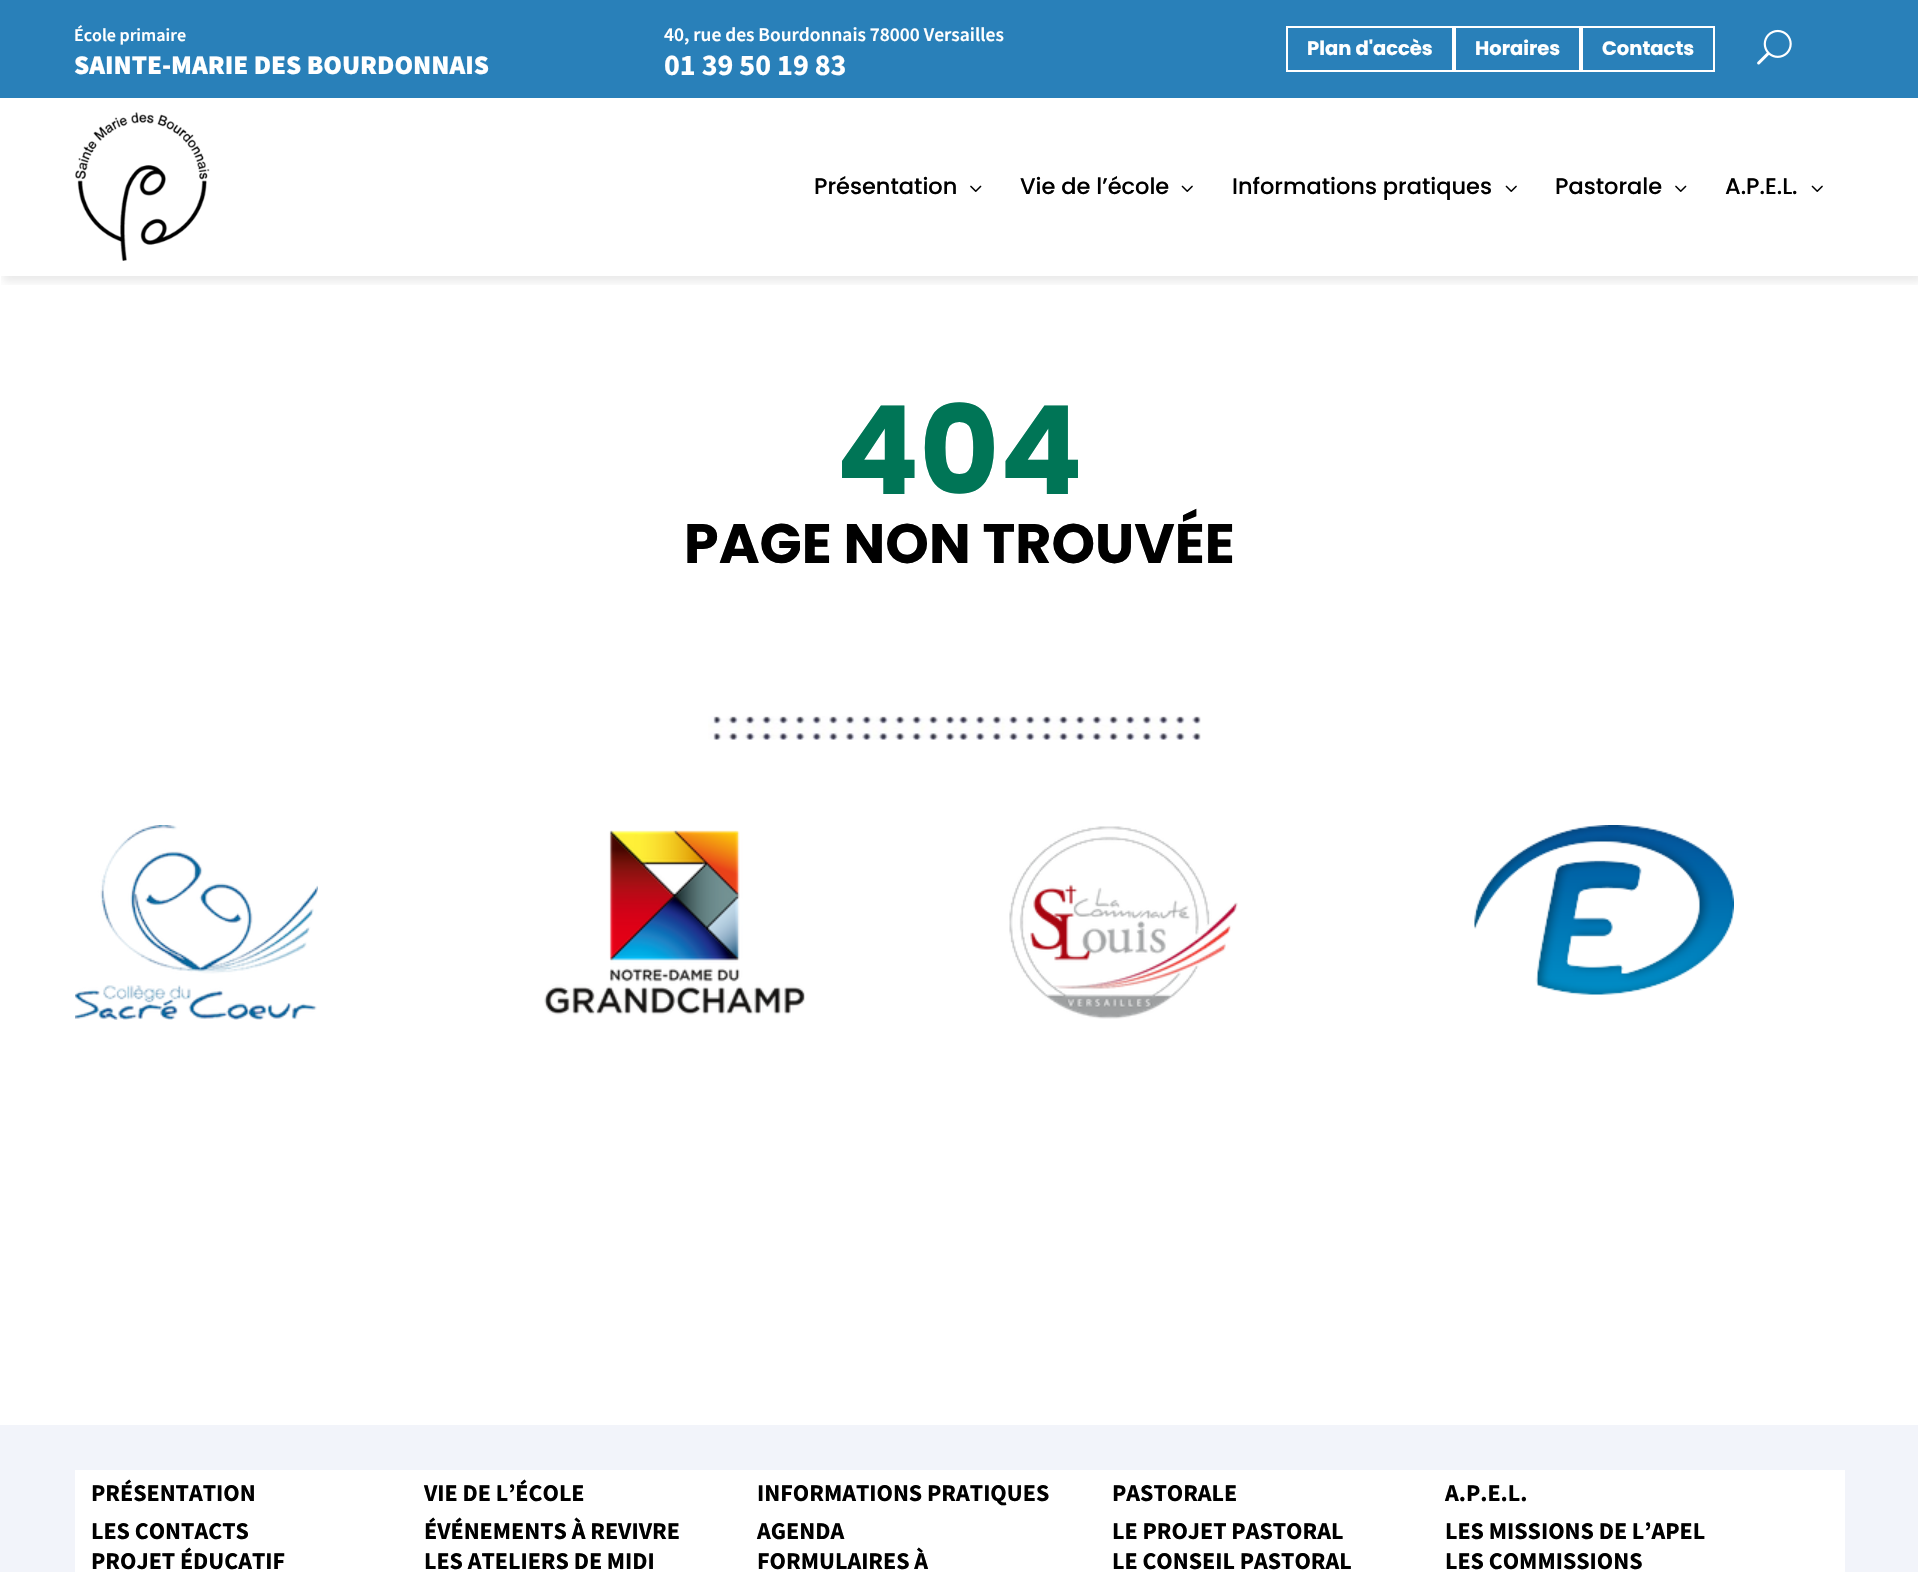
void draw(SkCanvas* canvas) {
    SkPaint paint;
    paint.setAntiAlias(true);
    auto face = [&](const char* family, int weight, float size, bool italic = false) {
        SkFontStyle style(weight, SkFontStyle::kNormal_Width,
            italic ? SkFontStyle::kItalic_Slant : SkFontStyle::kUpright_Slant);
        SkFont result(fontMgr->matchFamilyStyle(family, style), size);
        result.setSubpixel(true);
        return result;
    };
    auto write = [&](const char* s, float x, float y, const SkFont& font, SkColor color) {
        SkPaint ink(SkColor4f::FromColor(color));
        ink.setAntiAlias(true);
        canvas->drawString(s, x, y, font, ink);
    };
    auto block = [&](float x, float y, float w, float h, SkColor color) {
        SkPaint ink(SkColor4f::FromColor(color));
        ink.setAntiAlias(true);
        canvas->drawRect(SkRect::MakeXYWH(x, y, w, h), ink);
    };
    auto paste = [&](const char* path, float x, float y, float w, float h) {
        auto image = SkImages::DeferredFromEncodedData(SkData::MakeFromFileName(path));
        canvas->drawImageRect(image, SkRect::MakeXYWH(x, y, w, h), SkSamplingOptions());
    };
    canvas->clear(SK_ColorWHITE);
    block(0, 0, 1918, 98, SkColorSetRGB(41, 128, 185));
    auto kFont1 = face("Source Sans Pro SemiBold", 600, 18);
    write("École primaire", 74, 41, kFont1, SK_ColorWHITE);
    auto kFont2 = face("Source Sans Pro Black", 900, 27);
    write("SAINTE-MARIE DES BOURDONNAIS", 74, 74, kFont2, SK_ColorWHITE);
    auto kFont3 = face("Source Sans Pro SemiBold", 600, 19.5f);
    write("40, rue des Bourdonnais 78000 Versailles", 664, 41, kFont3, SK_ColorWHITE);
    auto kFont4 = face("Source Sans Pro", 700, 30);
    write("01 39 50 19 83", 664, 75, kFont4, SK_ColorWHITE);
    paint.setStyle(SkPaint::kStroke_Style);
    paint.setStrokeWidth(2);
    paint.setColor(SK_ColorWHITE);
    canvas->drawRect(SkRect::MakeXYWH(1287, 27, 166, 44), paint);
    auto kFont5 = face("Poppins", 700, 19.5f);
    write("Plan d'accès", 1307, 55, kFont5, SK_ColorWHITE);
    canvas->drawRect(SkRect::MakeXYWH(1455, 27, 125, 44), paint);
    write("Horaires", 1475, 55, kFont5, SK_ColorWHITE);
    canvas->drawRect(SkRect::MakeXYWH(1582, 27, 132, 44), paint);
    write("Contacts", 1602, 55, kFont5, SK_ColorWHITE);
    paste("pic1.png", 1757, 29, 35, 36);
    canvas->save();
    canvas->clipRect(SkRect::MakeXYWH(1, 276, 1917, 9));
    paint.setStyle(SkPaint::kFill_Style);
    paint.setColor(SkColorSetARGB(20, 0, 0, 0));
    paint.setMaskFilter(SkMaskFilter::MakeBlur(kNormal_SkBlurStyle, 4));
    canvas->drawRect(SkRect::MakeXYWH(3, 104, 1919, 178), paint);
    paint.setMaskFilter(nullptr);
    canvas->restore();
    paste("pic2.png", 75, 112, 135, 149);
    auto kFont6 = face("Poppins", 500, 22.5f);
    write("Présentation", 814, 194, kFont6, SK_ColorBLACK);
    paste("pic3.png", 970, 185, 12, 7);
    write("Vie de l’école", 1020, 194, kFont6, SK_ColorBLACK);
    paste("pic4.png", 1181, 185, 12, 7);
    write("Informations pratiques", 1232, 194, kFont6, SK_ColorBLACK);
    paste("pic4.png", 1505, 185, 12, 7);
    write("Pastorale", 1555, 194, kFont6, SK_ColorBLACK);
    paste("pic3.png", 1675, 185, 12, 7);
    write("A.P.E.L.", 1725, 194, kFont6, SK_ColorBLACK);
    paste("pic4.png", 1811, 185, 12, 7);
    auto kFont7 = face("Poppins", 700, 123);
    write("404", 836, 494, kFont7, SkColorSetRGB(0, 117, 86));
    auto kFont8 = face("Poppins", 700, 55.5f);
    write("PAGE NON TROUVÉE", 684, 563, kFont8, SK_ColorBLACK);
    paste("pic5.png", 708, 716, 493, 24);
    paste("pic6.png", 75, 825, 243, 195);
    paste("pic7.png", 544, 830, 261, 185);
    paste("pic8.png", 1009, 826, 229, 193);
    paste("pic9.png", 1474, 825, 260, 170);
    block(0, 1425, 1918, 147, SkColorSetRGB(242, 244, 250));
    block(75, 1470, 1770, 102, SK_ColorWHITE);
    auto kFont9 = face("Source Sans Pro", 700, 24);
    write("PRÉSENTATION", 91, 1501, kFont9, SK_ColorBLACK);
    write("LES CONTACTS", 91, 1539, kFont9, SK_ColorBLACK);
    write("PROJET ÉDUCATIF", 91, 1569, kFont9, SK_ColorBLACK);
    write("VIE DE L’ÉCOLE", 424, 1501, kFont9, SK_ColorBLACK);
    write("ÉVÉNEMENTS À REVIVRE", 424, 1539, kFont9, SK_ColorBLACK);
    write("LES ATELIERS DE MIDI", 424, 1569, kFont9, SK_ColorBLACK);
    write("INFORMATIONS PRATIQUES", 757, 1501, kFont9, SK_ColorBLACK);
    write("AGENDA", 757, 1539, kFont9, SK_ColorBLACK);
    write("FORMULAIRES À", 757, 1569, kFont9, SK_ColorBLACK);
    write("PASTORALE", 1112, 1501, kFont9, SK_ColorBLACK);
    write("LE PROJET PASTORAL", 1112, 1539, kFont9, SK_ColorBLACK);
    write("LE CONSEIL PASTORAL", 1112, 1569, kFont9, SK_ColorBLACK);
    write("A.P.E.L.", 1445, 1501, kFont9, SK_ColorBLACK);
    write("LES MISSIONS DE L’APEL", 1445, 1539, kFont9, SK_ColorBLACK);
    write("LES COMMISSIONS", 1445, 1569, kFont9, SK_ColorBLACK);
}
